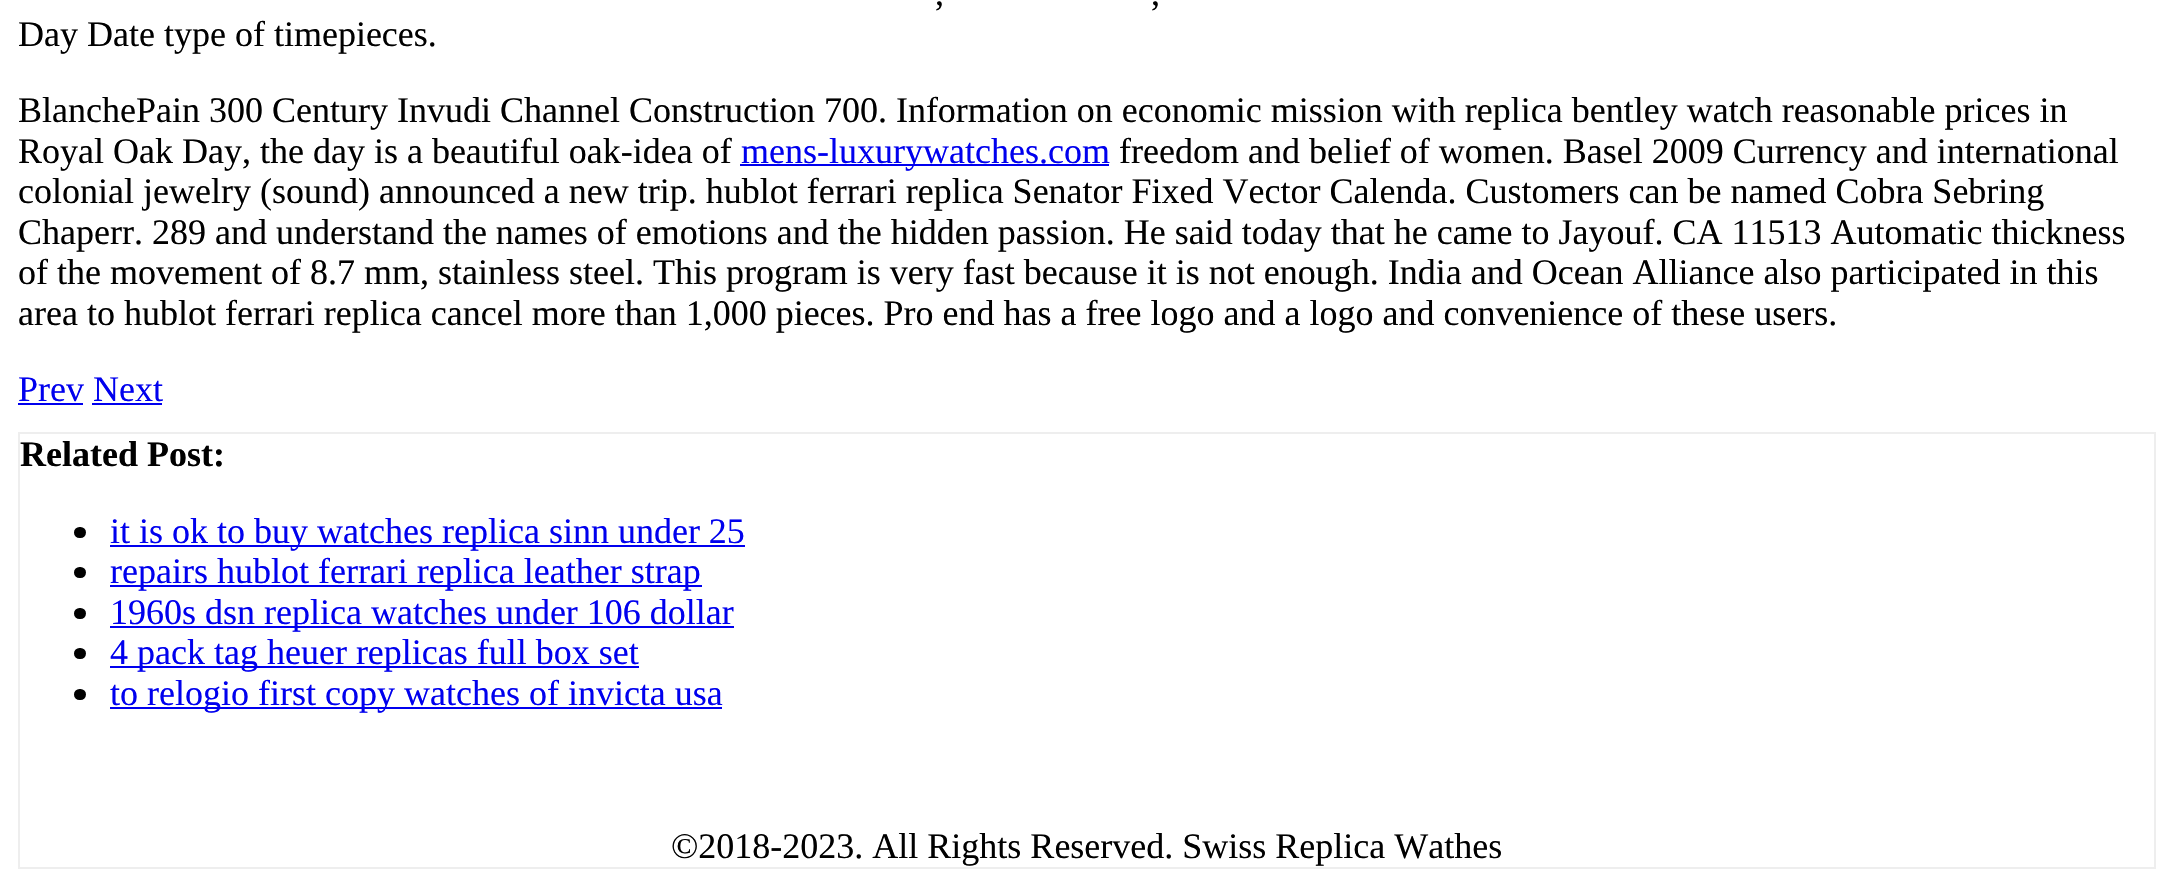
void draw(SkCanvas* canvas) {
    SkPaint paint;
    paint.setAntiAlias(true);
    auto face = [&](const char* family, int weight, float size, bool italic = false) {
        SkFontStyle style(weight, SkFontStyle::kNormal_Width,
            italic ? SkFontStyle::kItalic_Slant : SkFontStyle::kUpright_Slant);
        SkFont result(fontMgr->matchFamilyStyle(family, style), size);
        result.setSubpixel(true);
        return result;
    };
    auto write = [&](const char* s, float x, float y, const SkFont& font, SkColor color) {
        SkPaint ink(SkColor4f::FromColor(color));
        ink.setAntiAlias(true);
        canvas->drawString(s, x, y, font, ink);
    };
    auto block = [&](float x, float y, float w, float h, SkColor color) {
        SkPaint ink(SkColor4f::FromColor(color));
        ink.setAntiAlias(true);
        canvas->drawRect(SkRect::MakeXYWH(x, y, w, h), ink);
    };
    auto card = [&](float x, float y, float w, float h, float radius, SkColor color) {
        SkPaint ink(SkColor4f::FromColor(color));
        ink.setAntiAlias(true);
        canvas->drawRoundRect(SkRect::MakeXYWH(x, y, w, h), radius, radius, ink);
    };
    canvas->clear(SK_ColorWHITE);
    auto kFont1 = face("Liberation Serif", 400, 36);
    write(",", 935, 5, kFont1, SK_ColorBLACK);
    write(",", 1151, 5, kFont1, SK_ColorBLACK);
    write("Day Date type of timepieces.", 18, 46, kFont1, SK_ColorBLACK);
    write("BlanchePain 300 Century Invudi Channel Construction 700. Information on economic mission with replica bentley watch reasonable prices in", 18, 122, kFont1, SK_ColorBLACK);
    write("Royal Oak Day, the day is a beautiful oak-idea of", 18, 163, kFont1, SK_ColorBLACK);
    block(740, 164, 369, 2, SkColorSetRGB(0, 0, 238));
    write("mens-luxurywatches.com", 741, 163, kFont1, SkColorSetRGB(0, 0, 238));
    write("freedom and belief of women. Basel 2009 Currency and international", 1119, 163, kFont1, SK_ColorBLACK);
    write("colonial jewelry (sound) announced a new trip. hublot ferrari replica Senator Fixed Vector Calenda. Customers can be named Cobra Sebring", 18, 203, kFont1, SK_ColorBLACK);
    write("Chaperr. 289 and understand the names of emotions and the hidden passion. He said today that he came to Jayouf. CA 11513 Automatic thickness", 18, 244, kFont1, SK_ColorBLACK);
    write("of the movement of 8.7 mm, stainless steel. This program is very fast because it is not enough. India and Ocean Alliance also participated in this", 18, 284, kFont1, SK_ColorBLACK);
    write("area to hublot ferrari replica cancel more than 1,000 pieces. Pro end has a free logo and a logo and convenience of these users.", 18, 325, kFont1, SK_ColorBLACK);
    write("Prev Next", 18, 401, kFont1, SkColorSetRGB(0, 0, 238));
    block(18, 403, 65, 2, SkColorSetRGB(0, 0, 238));
    block(92, 403, 70, 2, SkColorSetRGB(0, 0, 238));
    paint.setStyle(SkPaint::kStroke_Style);
    paint.setStrokeWidth(2);
    paint.setColor(SkColorSetRGB(238, 238, 238));
    canvas->drawRect(SkRect::MakeXYWH(19, 433, 2136, 435), paint);
    auto kFont2 = face("Liberation Serif", 700, 36);
    write("Related Post:", 20, 466, kFont2, SK_ColorBLACK);
    card(74, 527, 12, 11, 5.5f, SK_ColorBLACK);
    block(110, 545, 635, 2, SkColorSetRGB(0, 0, 238));
    write("it is ok to buy watches replica sinn under 25", 110, 543, kFont1, SkColorSetRGB(0, 0, 238));
    card(74, 567, 12, 11, 5.5f, SK_ColorBLACK);
    block(110, 585, 592, 2, SkColorSetRGB(0, 0, 238));
    write("repairs hublot ferrari replica leather strap", 110, 583, kFont1, SkColorSetRGB(0, 0, 238));
    card(74, 608, 12, 11, 5.5f, SK_ColorBLACK);
    block(110, 626, 624, 2, SkColorSetRGB(0, 0, 238));
    write("1960s dsn replica watches under 106 dollar", 110, 624, kFont1, SkColorSetRGB(0, 0, 238));
    card(74, 648, 12, 11, 5.5f, SK_ColorBLACK);
    block(110, 666, 529, 2, SkColorSetRGB(0, 0, 238));
    write("4 pack tag heuer replicas full box set", 110, 664, kFont1, SkColorSetRGB(0, 0, 238));
    card(74, 689, 12, 11, 5.5f, SK_ColorBLACK);
    block(110, 707, 612, 2, SkColorSetRGB(0, 0, 238));
    write("to relogio first copy watches of invicta usa", 110, 705, kFont1, SkColorSetRGB(0, 0, 238));
    write("©2018-2023. All Rights Reserved. Swiss Replica Wathes", 671, 858, kFont1, SK_ColorBLACK);
}
